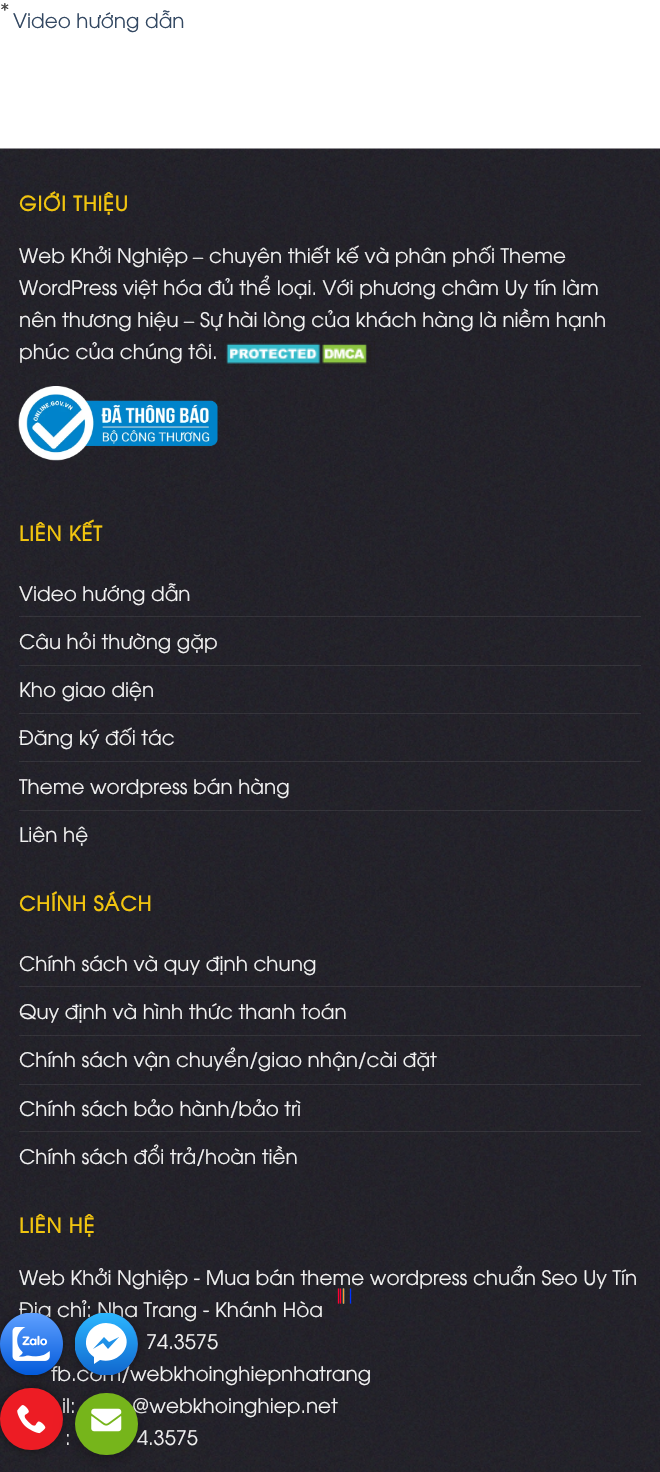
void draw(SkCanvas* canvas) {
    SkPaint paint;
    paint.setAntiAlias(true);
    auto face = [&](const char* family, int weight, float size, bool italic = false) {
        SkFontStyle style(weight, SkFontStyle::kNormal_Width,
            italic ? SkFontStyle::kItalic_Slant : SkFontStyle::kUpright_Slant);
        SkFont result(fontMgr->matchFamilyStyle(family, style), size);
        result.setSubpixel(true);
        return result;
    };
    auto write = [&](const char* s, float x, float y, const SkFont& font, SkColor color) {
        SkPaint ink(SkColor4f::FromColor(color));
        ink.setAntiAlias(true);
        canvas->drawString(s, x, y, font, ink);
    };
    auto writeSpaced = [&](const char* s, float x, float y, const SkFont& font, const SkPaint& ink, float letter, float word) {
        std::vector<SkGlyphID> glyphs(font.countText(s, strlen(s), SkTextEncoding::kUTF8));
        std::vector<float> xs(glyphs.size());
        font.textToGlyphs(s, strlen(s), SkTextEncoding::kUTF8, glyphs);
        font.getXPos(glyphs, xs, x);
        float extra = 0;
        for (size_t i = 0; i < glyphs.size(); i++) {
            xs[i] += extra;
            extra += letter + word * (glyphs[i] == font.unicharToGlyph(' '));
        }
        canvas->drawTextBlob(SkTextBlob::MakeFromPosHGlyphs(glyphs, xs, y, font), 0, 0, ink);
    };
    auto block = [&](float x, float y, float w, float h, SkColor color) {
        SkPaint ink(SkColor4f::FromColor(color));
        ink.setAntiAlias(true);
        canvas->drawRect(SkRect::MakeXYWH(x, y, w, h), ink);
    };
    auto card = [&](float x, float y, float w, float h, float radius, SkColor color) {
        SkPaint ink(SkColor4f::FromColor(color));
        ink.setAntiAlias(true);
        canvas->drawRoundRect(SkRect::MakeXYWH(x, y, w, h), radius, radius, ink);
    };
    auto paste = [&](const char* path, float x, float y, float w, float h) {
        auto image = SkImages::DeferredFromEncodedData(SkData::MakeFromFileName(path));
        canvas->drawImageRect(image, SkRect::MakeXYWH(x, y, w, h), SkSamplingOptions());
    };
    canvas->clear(SK_ColorWHITE);
    auto kFont1 = face("DejaVu Sans Mono", 400, 16);
    write("*", 0, 15, kFont1, SkColorSetRGB(74, 74, 74));
    write("*", 0, 15, kFont1, SkColorSetRGB(74, 74, 74));
    paste("pic1.png", 0, 148, 660, 1324);
    auto kFont2 = face("DejaVu Sans Mono", 400, 15);
    write("|", 336, 1300, kFont2, SkColorSetRGB(255, 0, 51));
    write("|", 334, 1300, kFont2, SkColorSetRGB(255, 0, 51));
    write("|", 339, 1300, kFont2, SkColorSetRGB(0, 204, 255));
    write("|", 339, 1300, kFont2, SkColorSetRGB(255, 153, 51));
    write("|", 346, 1300, kFont2, SkColorSetRGB(0, 51, 255));
    auto kFont3 = face("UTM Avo", 400, 20);
    write("Video hướng dẫn", 13, 28, kFont3, SkColorSetRGB(51, 72, 98));
    auto kFont4 = face("UTM Avo", 700, 20);
    paint.setColor(SkColorSetRGB(241, 196, 15));
    writeSpaced("GIỚI THIỆU", 19, 211, kFont4, paint, 1, 0);
    write("Web Khởi Nghiệp", 19, 263, kFont3, SkColorSetRGB(241, 241, 241));
    auto kFont5 = face("Liberation Serif", 400, 20);
    write("–", 193, 263, kFont5, SkColorSetRGB(241, 241, 241));
    write("chuyên thiết kế và phân phối Theme", 209, 263, kFont3, SkColorSetRGB(241, 241, 241));
    write("WordPress việt hóa đủ thể loại. Với phương châm Uy tín làm", 19, 295, kFont3, SkColorSetRGB(241, 241, 241));
    write("nên thương hiệu", 19, 327, kFont3, SkColorSetRGB(241, 241, 241));
    write("–", 184, 327, kFont5, SkColorSetRGB(241, 241, 241));
    write("Sự hài lòng của khách hàng là niềm hạnh", 200, 327, kFont3, SkColorSetRGB(241, 241, 241));
    write("phúc của chúng tôi.", 19, 359, kFont3, SkColorSetRGB(241, 241, 241));
    paste("pic2.png", 222, 341, 153, 26);
    paste("pic3.png", 18, 386, 200, 75);
    writeSpaced("LIÊN KẾT", 19, 541, kFont4, paint, 1, 0);
    write("Video hướng dẫn", 19, 601, kFont3, SkColorSetRGB(241, 241, 241));
    block(19, 616, 622, 1, SkColorSetARGB(20, 255, 255, 255));
    write("Câu hỏi thường gặp", 19, 649, kFont3, SkColorSetRGB(241, 241, 241));
    block(19, 665, 622, 1, SkColorSetARGB(20, 255, 255, 255));
    write("Kho giao diện", 19, 697, kFont3, SkColorSetRGB(241, 241, 241));
    block(19, 713, 622, 1, SkColorSetARGB(20, 255, 255, 255));
    write("Đăng ký đối tác", 19, 745, kFont3, SkColorSetRGB(241, 241, 241));
    block(19, 761, 622, 1, SkColorSetARGB(20, 255, 255, 255));
    write("Theme wordpress bán hàng", 19, 794, kFont3, SkColorSetRGB(241, 241, 241));
    block(19, 810, 622, 1, SkColorSetARGB(20, 255, 255, 255));
    write("Liên hệ", 19, 842, kFont3, SkColorSetRGB(241, 241, 241));
    writeSpaced("CHÍNH SÁCH", 19, 911, kFont4, paint, 1, 0);
    write("Chính sách và quy định chung", 19, 971, kFont3, SkColorSetRGB(241, 241, 241));
    block(19, 986, 622, 1, SkColorSetARGB(20, 255, 255, 255));
    write("Quy định và hình thức thanh toán", 19, 1019, kFont3, SkColorSetRGB(241, 241, 241));
    block(19, 1035, 622, 1, SkColorSetARGB(20, 255, 255, 255));
    write("Chính sách vận chuyển/giao nhận/cài đặt", 19, 1067, kFont3, SkColorSetRGB(241, 241, 241));
    block(19, 1084, 622, 1, SkColorSetARGB(20, 255, 255, 255));
    write("Chính sách bảo hành/bảo trì", 19, 1116, kFont3, SkColorSetRGB(241, 241, 241));
    block(19, 1131, 622, 1, SkColorSetARGB(20, 255, 255, 255));
    write("Chính sách đổi trả/hoàn tiền", 19, 1164, kFont3, SkColorSetRGB(241, 241, 241));
    writeSpaced("LIÊN HỆ", 19, 1233, kFont4, paint, 1, 0);
    write("Web Khởi Nghiệp - Mua bán theme wordpress chuẩn Seo Uy Tín", 19, 1285, kFont3, SkColorSetRGB(241, 241, 241));
    write("Địa chỉ: Nha Trang - Khánh Hòa", 19, 1317, kFont3, SkColorSetRGB(241, 241, 241));
    write("74.3575", 146, 1349, kFont3, SkColorSetRGB(241, 241, 241));
    write("fb.com/webkhoinghiepnhatrang", 51, 1381, kFont3, SkColorSetRGB(241, 241, 241));
    write("il:", 62, 1413, kFont3, SkColorSetRGB(241, 241, 241));
    write("@webkhoinghiep.net", 132, 1413, kFont3, SkColorSetRGB(241, 241, 241));
    write(":", 65, 1445, kFont3, SkColorSetRGB(241, 241, 241));
    write("4.3575", 137, 1445, kFont3, SkColorSetRGB(241, 241, 241));
    paint.setColor(SkColorSetARGB(179, 0, 0, 0));
    paint.setMaskFilter(SkMaskFilter::MakeBlur(kNormal_SkBlurStyle, 6));
    canvas->drawRoundRect(SkRect::MakeXYWH(3, 1315, 57, 58), 28.5f, 28.5f, paint);
    paint.setMaskFilter(nullptr);
    paste("pic4.png", 0, 1313, 63, 62);
    paint.setMaskFilter(SkMaskFilter::MakeBlur(kNormal_SkBlurStyle, 6));
    canvas->drawRoundRect(SkRect::MakeXYWH(78, 1315, 57, 58), 28.5f, 28.5f, paint);
    paint.setMaskFilter(nullptr);
    card(75, 1313, 63, 62, 31, SkColorSetRGB(66, 103, 178));
    canvas->save();
    canvas->clipRect(SkRect::MakeXYWH(75, 1313, 63, 62));
    {
        const SkColor colors[] = {SkColorSetRGB(17, 104, 207), SkColorSetRGB(44, 183, 255)};
        const float stops[] = {0, 1};
        const SkPoint ends[] = {{106, 1374}, {106, 1313}};
        paint.setShader(SkGradientShader::MakeLinear(ends, colors, stops, 2, SkTileMode::kClamp));
        paint.setAlpha(255);
    }
    canvas->drawCircle(106, 1344, 31.5f, paint);
    canvas->restore();
    paint.setShader(nullptr);
    paint.setColor(SK_ColorWHITE);
    canvas->drawPath(SkPathBuilder(SkPathFillType::kEvenOdd).moveTo(106, 1323).cubicTo(88, 1323, 78, 1346, 94, 1357).lineTo(94, 1364).lineTo(100, 1360).cubicTo(119, 1365, 136, 1344, 121, 1329).cubicTo(117, 1325, 112, 1323, 106, 1323).close().moveTo(108, 1349).lineTo(103, 1343).lineTo(93, 1349).lineTo(104, 1337).lineTo(109, 1342).lineTo(119, 1337).close().detach(), paint);
    paint.setColor(SkColorSetARGB(179, 0, 0, 0));
    paint.setMaskFilter(SkMaskFilter::MakeBlur(kNormal_SkBlurStyle, 6));
    canvas->drawRoundRect(SkRect::MakeXYWH(3, 1390, 57, 58), 28.5f, 28.5f, paint);
    paint.setMaskFilter(nullptr);
    card(0, 1388, 63, 62, 31, SkColorSetRGB(237, 28, 36));
    paste("pic5.png", 17, 1405, 29, 29);
    canvas->save();
    canvas->clipPath(SkPathBuilder(SkPathFillType::kEvenOdd).moveTo(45, 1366).lineTo(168, 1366).lineTo(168, 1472).lineTo(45, 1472).close().moveTo(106.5f, 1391).cubicTo(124, 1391, 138, 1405, 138, 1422.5f).cubicTo(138, 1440, 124, 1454, 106.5f, 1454).cubicTo(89, 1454, 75, 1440, 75, 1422.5f).cubicTo(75, 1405, 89, 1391, 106.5f, 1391).close().detach(), true);
    paint.setColor(SkColorSetARGB(33, 0, 0, 0));
    paint.setMaskFilter(SkMaskFilter::MakeBlur(kNormal_SkBlurStyle, 9.5f));
    canvas->drawRoundRect(SkRect::MakeXYWH(75, 1396, 63, 63), 31.5f, 31.5f, paint);
    paint.setMaskFilter(nullptr);
    canvas->restore();
    paint.setColor(SkColorSetARGB(38, 0, 0, 0));
    paint.setMaskFilter(SkMaskFilter::MakeBlur(kNormal_SkBlurStyle, 6));
    canvas->drawRoundRect(SkRect::MakeXYWH(75, 1398, 63, 62), 31, 31, paint);
    paint.setMaskFilter(nullptr);
    card(75, 1393, 63, 62, 31, SkColorSetRGB(118, 181, 27));
    paste("pic6.png", 91, 1408, 31, 24);
}
